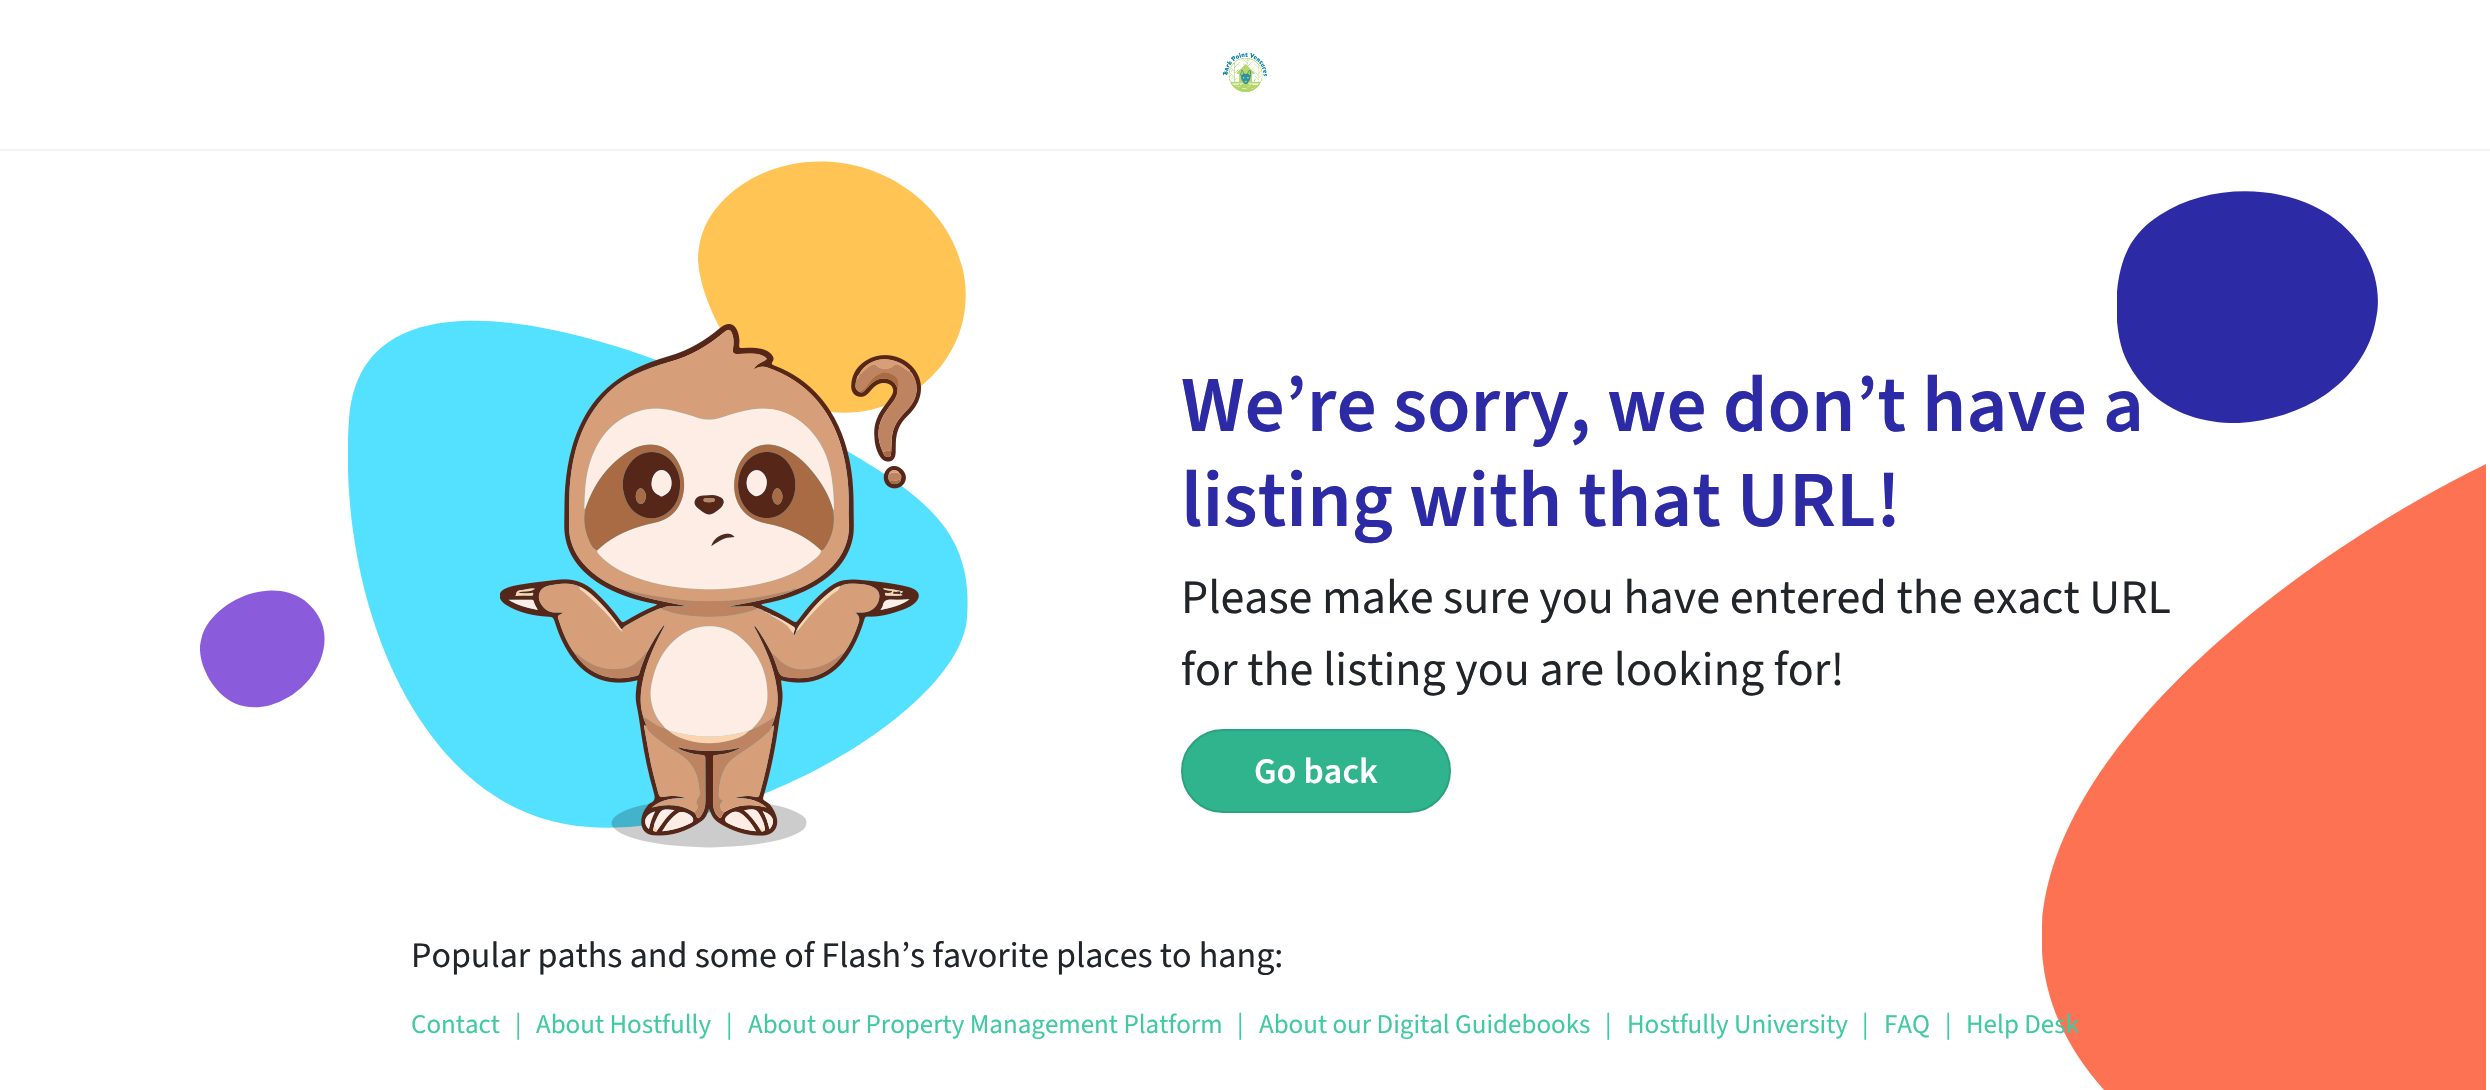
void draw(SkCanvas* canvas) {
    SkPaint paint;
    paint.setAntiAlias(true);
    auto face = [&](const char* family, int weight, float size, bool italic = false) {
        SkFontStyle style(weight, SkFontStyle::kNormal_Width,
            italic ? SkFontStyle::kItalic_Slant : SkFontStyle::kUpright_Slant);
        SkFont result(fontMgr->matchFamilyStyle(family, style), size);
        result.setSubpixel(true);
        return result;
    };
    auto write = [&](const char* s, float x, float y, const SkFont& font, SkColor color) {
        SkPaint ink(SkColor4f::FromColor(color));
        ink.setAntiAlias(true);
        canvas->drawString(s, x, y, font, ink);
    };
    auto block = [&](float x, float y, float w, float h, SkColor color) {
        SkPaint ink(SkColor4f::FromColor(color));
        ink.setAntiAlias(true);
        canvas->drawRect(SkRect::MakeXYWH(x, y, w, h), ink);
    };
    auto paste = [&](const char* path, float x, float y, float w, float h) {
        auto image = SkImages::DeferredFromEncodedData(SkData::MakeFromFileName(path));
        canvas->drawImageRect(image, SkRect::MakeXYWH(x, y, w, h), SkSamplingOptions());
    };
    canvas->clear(SK_ColorWHITE);
    block(0, 149, 2490, 2, SkColorSetRGB(243, 243, 247));
    paste("pic1.png", 1223, 52, 44, 41);
    canvas->save();
    canvas->clipRect(SkRect::MakeXYWH(348, 320, 620, 508));
    paint.setColor(SkColorSetRGB(84, 224, 255));
    canvas->drawPath(SkPathBuilder().moveTo(349, 419).cubicTo(337, 593, 413, 796, 565, 824).cubicTo(717, 852, 960, 714, 967, 618).cubicTo(974, 522, 917, 487, 777, 413).cubicTo(636, 339, 361, 246, 349, 419).close().detach(), paint);
    canvas->restore();
    paint.setColor(SkColorSetRGB(255, 196, 84));
    canvas->drawPath(SkPathBuilder().moveTo(710, 217).cubicTo(702, 230, 698, 245, 698, 260).cubicTo(700, 297, 726, 346, 751, 371).cubicTo(762, 382, 774, 392, 788, 399).cubicTo(819, 415, 855, 417, 887, 405).cubicTo(914, 395, 937, 376, 951, 351).cubicTo(965, 327, 969, 298, 963, 270).cubicTo(942, 182, 840, 137, 759, 175).cubicTo(740, 184, 722, 198, 710, 217).close().detach(), paint);
    canvas->save();
    canvas->clipRect(SkRect::MakeXYWH(2117, 191, 262, 232));
    paint.setColor(SkColorSetRGB(45, 42, 165));
    canvas->drawPath(SkPathBuilder().moveTo(2160, 215).cubicTo(2147, 223, 2135, 235, 2128, 249).cubicTo(2114, 277, 2113, 322, 2123, 352).cubicTo(2128, 365, 2135, 376, 2144, 386).cubicTo(2168, 413, 2204, 424, 2239, 423).cubicTo(2269, 421, 2300, 412, 2325, 395).cubicTo(2351, 377, 2371, 350, 2376, 319).cubicTo(2381, 296, 2376, 272, 2364, 251).cubicTo(2325, 185, 2222, 175, 2160, 215).close().detach(), paint);
    canvas->restore();
    paint.setColor(SkColorSetRGB(138, 91, 218));
    canvas->drawPath(SkPathBuilder().moveTo(207, 625).cubicTo(203, 631, 201, 638, 200, 646).cubicTo(199, 668, 215, 694, 234, 703).cubicTo(250, 710, 268, 708, 283, 700).cubicTo(296, 694, 308, 683, 315, 671).cubicTo(323, 658, 327, 642, 323, 627).cubicTo(320, 616, 313, 607, 304, 600).cubicTo(274, 579, 227, 595, 207, 625).close().detach(), paint);
    paste("pic2.png", 500, 324, 421, 524);
    auto kFont1 = face("Source Sans 3", 600, 79.5f);
    write("We’re sorry, we don’t have a", 1181, 431, kFont1, SkColorSetRGB(45, 42, 165));
    write("listing with that URL!", 1181, 526, kFont1, SkColorSetRGB(45, 42, 165));
    canvas->save();
    canvas->clipRect(SkRect::MakeXYWH(2042, 360, 444, 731));
    paint.setColor(SkColorSetRGB(254, 114, 84));
    canvas->drawPath(SkPathBuilder().moveTo(2150, 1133).cubicTo(2444, 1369, 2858, 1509, 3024, 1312).cubicTo(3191, 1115, 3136, 572, 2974, 441).cubicTo(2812, 310, 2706, 353, 2468, 473).cubicTo(2230, 594, 1855, 897, 2150, 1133).close().detach(), paint);
    canvas->restore();
    auto kFont2 = face("Source Sans 3", 400, 48);
    write("Please make sure you have entered the exact URL", 1181, 613, kFont2, SkColorSetRGB(33, 37, 41));
    write("for the listing you are looking for!", 1181, 685, kFont2, SkColorSetRGB(33, 37, 41));
    paint.setColor(SkColorSetRGB(48, 180, 141));
    canvas->drawRoundRect(SkRect::MakeXYWH(1182, 730, 268, 82), 41, 41, paint);
    paint.setStyle(SkPaint::kStroke_Style);
    paint.setStrokeWidth(2);
    paint.setColor(SkColorSetRGB(43, 162, 127));
    canvas->drawRoundRect(SkRect::MakeXYWH(1182, 730, 268, 82), 41, 41, paint);
    auto kFont3 = face("Source Sans 3", 600, 36);
    write("Go back", 1254, 783, kFont3, SK_ColorWHITE);
    auto kFont4 = face("Source Sans 3", 400, 36);
    write("Popular paths and some of Flash’s favorite places to hang:", 411, 967, kFont4, SkColorSetRGB(33, 37, 41));
    auto kFont5 = face("Source Sans 3", 400, 27);
    write("Contact", 411, 1033, kFont5, SkColorSetRGB(64, 202, 161));
    write("|", 515, 1033, kFont5, SkColorSetRGB(64, 202, 161));
    write("About Hostfully", 536, 1033, kFont5, SkColorSetRGB(64, 202, 161));
    write("|", 726, 1033, kFont5, SkColorSetRGB(64, 202, 161));
    write("About our Property Management Platform", 748, 1033, kFont5, SkColorSetRGB(64, 202, 161));
    write("|", 1237, 1033, kFont5, SkColorSetRGB(64, 202, 161));
    write("About our Digital Guidebooks", 1259, 1033, kFont5, SkColorSetRGB(64, 202, 161));
    write("|", 1605, 1033, kFont5, SkColorSetRGB(64, 202, 161));
    write("Hostfully University", 1627, 1033, kFont5, SkColorSetRGB(64, 202, 161));
    write("|", 1862, 1033, kFont5, SkColorSetRGB(64, 202, 161));
    write("FAQ", 1884, 1033, kFont5, SkColorSetRGB(64, 202, 161));
    write("|", 1945, 1033, kFont5, SkColorSetRGB(64, 202, 161));
    write("Help Desk", 1966, 1033, kFont5, SkColorSetRGB(64, 202, 161));
}
